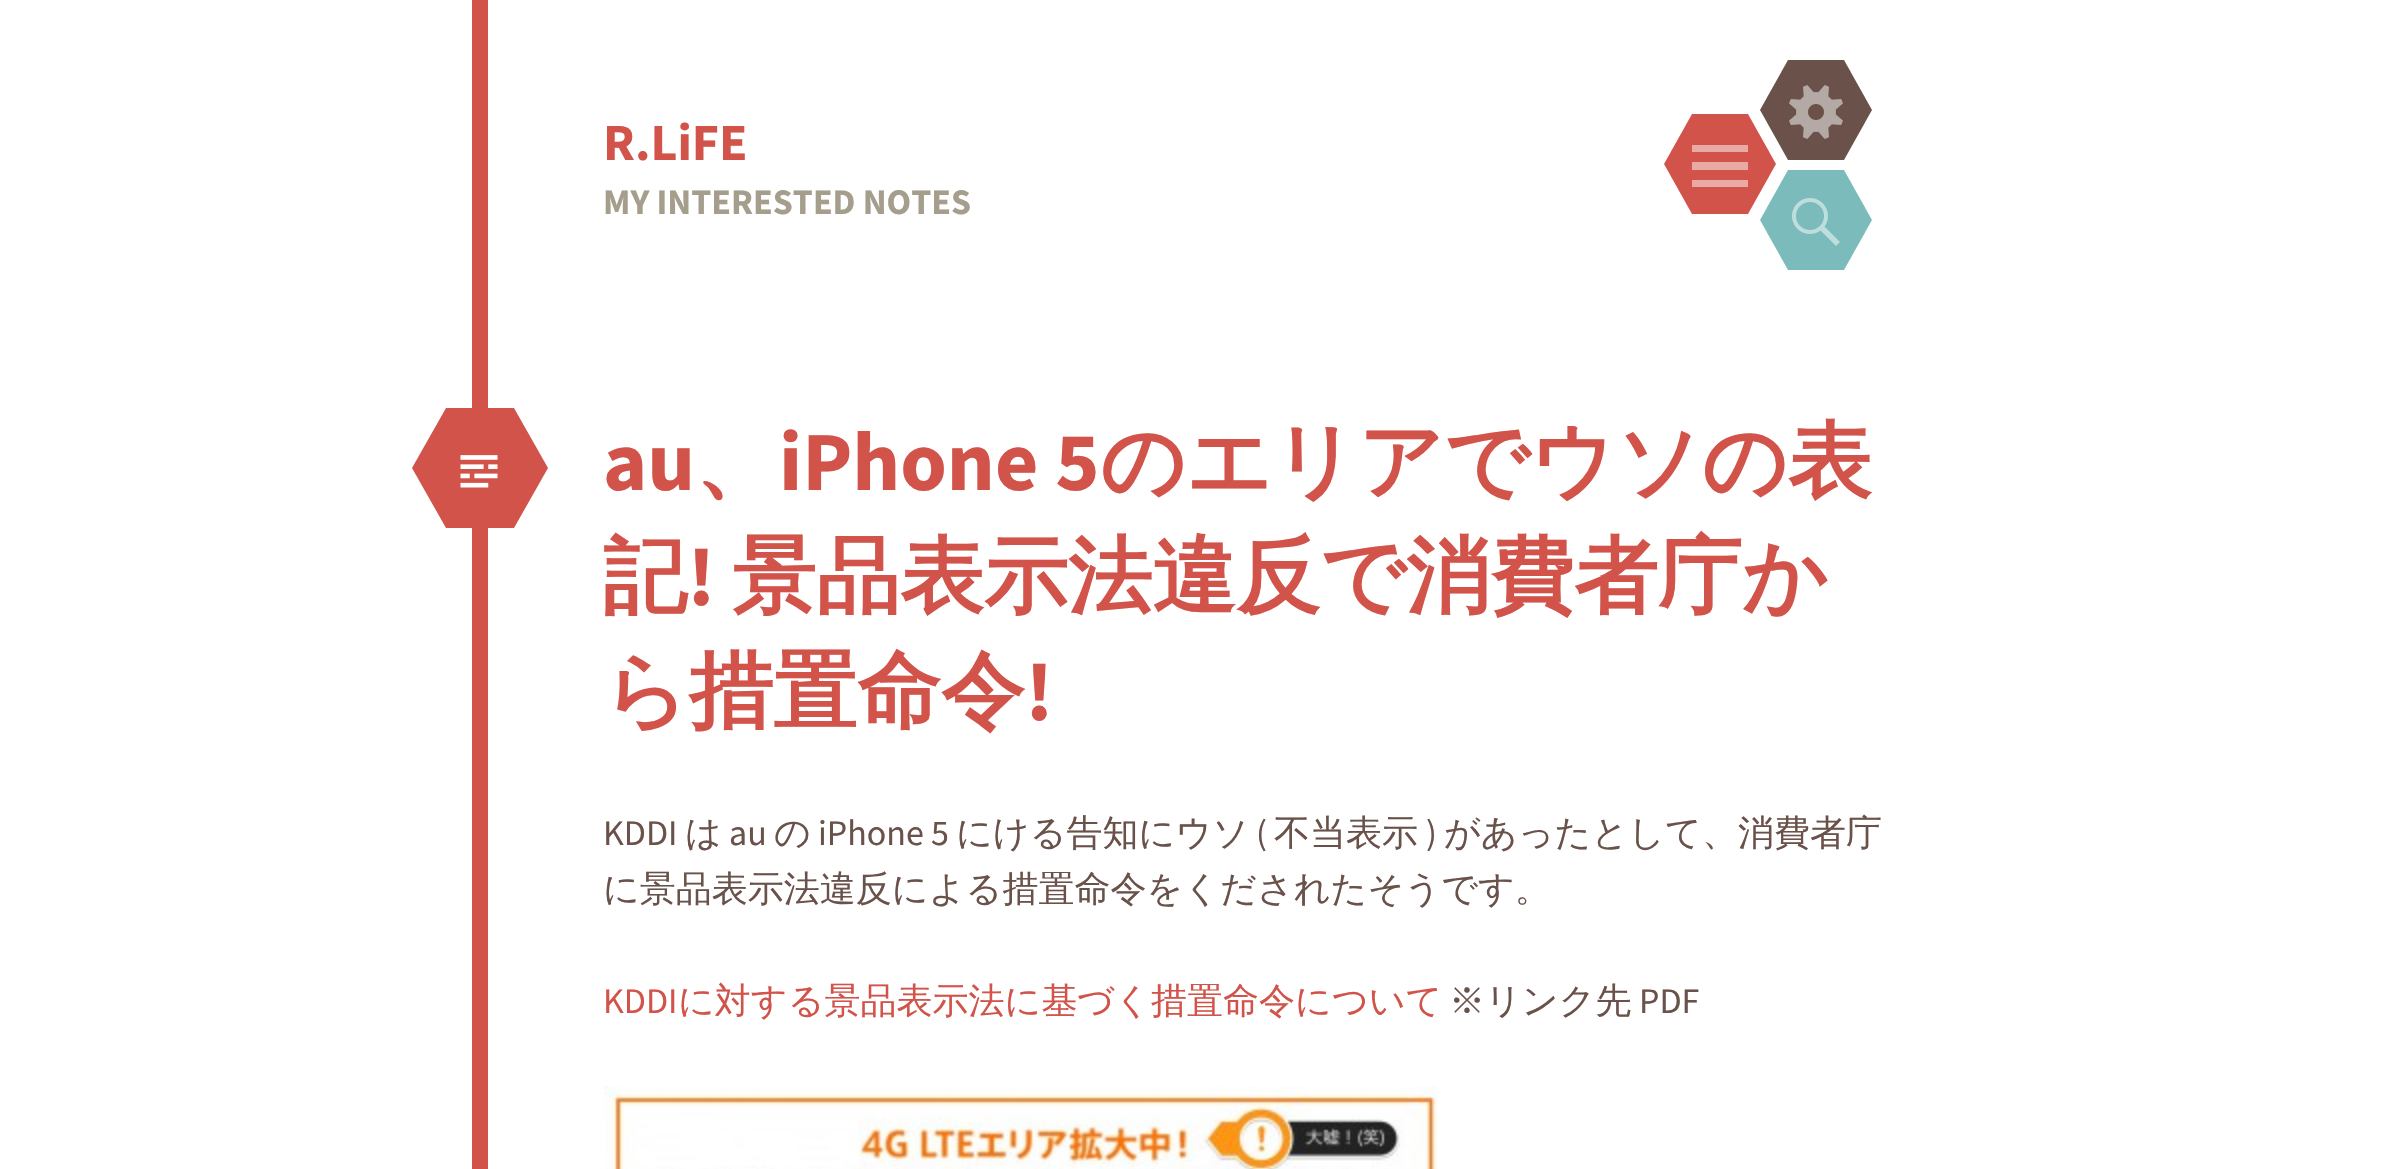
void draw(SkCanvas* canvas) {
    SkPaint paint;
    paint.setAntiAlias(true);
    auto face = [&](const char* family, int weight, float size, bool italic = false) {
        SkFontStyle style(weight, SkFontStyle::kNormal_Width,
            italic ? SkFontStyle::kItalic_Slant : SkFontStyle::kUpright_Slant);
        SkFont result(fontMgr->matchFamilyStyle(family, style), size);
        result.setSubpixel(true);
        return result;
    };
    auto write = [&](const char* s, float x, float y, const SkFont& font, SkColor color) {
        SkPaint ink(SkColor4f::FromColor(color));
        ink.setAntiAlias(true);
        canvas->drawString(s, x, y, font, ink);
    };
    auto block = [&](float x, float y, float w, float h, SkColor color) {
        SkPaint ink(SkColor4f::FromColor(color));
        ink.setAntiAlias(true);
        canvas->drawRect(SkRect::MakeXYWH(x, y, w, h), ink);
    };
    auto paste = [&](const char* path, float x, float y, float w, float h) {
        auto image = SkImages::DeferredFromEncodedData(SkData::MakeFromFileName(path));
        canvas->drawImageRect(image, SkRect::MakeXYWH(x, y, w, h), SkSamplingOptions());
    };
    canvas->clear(SK_ColorWHITE);
    auto kFont1 = face("Source Sans Pro", 700, 52);
    write("R.LiFE", 603, 160, kFont1, SkColorSetRGB(210, 83, 73));
    auto kFont2 = face("Source Sans Pro", 700, 36);
    write("MY INTERESTED NOTES", 603, 214, kFont2, SkColorSetRGB(166, 158, 141));
    block(1692, 114, 56, 100, SkColorSetRGB(210, 83, 73));
    paint.setColor(SkColorSetRGB(210, 83, 73));
    canvas->drawPath(SkPathBuilder().moveTo(1692, 114).lineTo(1692, 214).lineTo(1664, 164).close().detach(), paint);
    paint.setColor(SkColorSetRGB(233, 169, 164));
    canvas->drawPath(SkPathBuilder().moveTo(1692, 187).lineTo(1692, 180).lineTo(1748, 180).lineTo(1748, 187).close().moveTo(1692, 145).lineTo(1748, 145).lineTo(1748, 152).lineTo(1692, 152).close().moveTo(1692, 170).lineTo(1692, 162).lineTo(1748, 162).lineTo(1748, 170).close().detach(), paint);
    paint.setColor(SkColorSetRGB(210, 83, 73));
    canvas->drawPath(SkPathBuilder().moveTo(1748, 214).lineTo(1748, 114).lineTo(1776, 164).close().detach(), paint);
    block(1788, 60, 56, 100, SkColorSetRGB(106, 82, 74));
    paint.setColor(SkColorSetRGB(106, 82, 74));
    canvas->drawPath(SkPathBuilder().moveTo(1788, 60).lineTo(1788, 160).lineTo(1760, 110).close().detach(), paint);
    paste("pic1.png", 1789, 85, 54, 54);
    canvas->drawPath(SkPathBuilder().moveTo(1844, 160).lineTo(1844, 60).lineTo(1872, 110).close().detach(), paint);
    block(1788, 170, 56, 100, SkColorSetRGB(124, 187, 187));
    paint.setColor(SkColorSetRGB(124, 187, 187));
    canvas->drawPath(SkPathBuilder().moveTo(1788, 170).lineTo(1788, 270).lineTo(1760, 220).close().detach(), paint);
    paste("pic2.png", 1792, 198, 48, 48);
    canvas->drawPath(SkPathBuilder().moveTo(1844, 270).lineTo(1844, 170).lineTo(1872, 220).close().detach(), paint);
    block(472, 0, 16, 1169, SkColorSetRGB(210, 83, 73));
    block(446, 408, 68, 120, SkColorSetRGB(210, 83, 73));
    paint.setColor(SkColorSetRGB(210, 83, 73));
    canvas->drawPath(SkPathBuilder().moveTo(446, 408).lineTo(446, 528).lineTo(412, 468).close().detach(), paint);
    paste("pic3.png", 460, 455, 38, 33);
    canvas->drawPath(SkPathBuilder().moveTo(514, 528).lineTo(514, 408).lineTo(548, 468).close().detach(), paint);
    auto kFont3 = face("Source Sans Pro", 700, 84);
    write("au", 603, 490, kFont3, SkColorSetRGB(210, 83, 73));
    auto kFont4 = face("WenQuanYi Zen Hei", 700, 84);
    write("、", 695, 490, kFont4, SkColorSetRGB(210, 83, 73));
    write("iPhone 5", 779, 490, kFont3, SkColorSetRGB(210, 83, 73));
    write("のエリアでウソの表", 1100, 490, kFont4, SkColorSetRGB(210, 83, 73));
    write("記", 603, 605, kFont4, SkColorSetRGB(210, 83, 73));
    write("!", 687, 605, kFont3, SkColorSetRGB(210, 83, 73));
    write("景品表示法違反で消費者庁か", 732, 605, kFont4, SkColorSetRGB(210, 83, 73));
    write("ら措置命令", 603, 720, kFont4, SkColorSetRGB(210, 83, 73));
    write("!", 1025, 720, kFont3, SkColorSetRGB(210, 83, 73));
    auto kFont5 = face("Source Sans Pro", 400, 36);
    write("KDDI", 603, 845, kFont5, SkColorSetRGB(106, 82, 74));
    auto kFont6 = face("WenQuanYi Zen Hei", 500, 36);
    write("は", 685, 845, kFont6, SkColorSetRGB(106, 82, 74));
    write("au", 729, 845, kFont5, SkColorSetRGB(106, 82, 74));
    write("の", 774, 845, kFont6, SkColorSetRGB(106, 82, 74));
    write("iPhone 5", 818, 845, kFont5, SkColorSetRGB(106, 82, 74));
    write("にける告知にウソ", 956, 845, kFont6, SkColorSetRGB(106, 82, 74));
    write("(", 1256, 845, kFont5, SkColorSetRGB(106, 82, 74));
    write("不当表示", 1274, 845, kFont6, SkColorSetRGB(106, 82, 74));
    write(")", 1426, 845, kFont5, SkColorSetRGB(106, 82, 74));
    write("があったとして、消費者庁", 1444, 845, kFont6, SkColorSetRGB(106, 82, 74));
    write("に景品表示法違反による措置命令をくだされたそうです。", 603, 901, kFont6, SkColorSetRGB(106, 82, 74));
    write("KDDI", 603, 1013, kFont5, SkColorSetRGB(210, 83, 73));
    write("に対する景品表示法に基づく措置命令について", 678, 1013, kFont6, SkColorSetRGB(210, 83, 73));
    write("※リンク先", 1449, 1013, kFont6, SkColorSetRGB(106, 82, 74));
    write("PDF", 1639, 1013, kFont5, SkColorSetRGB(106, 82, 74));
    paste("pic4.png", 604, 1086, 834, 83);
}
